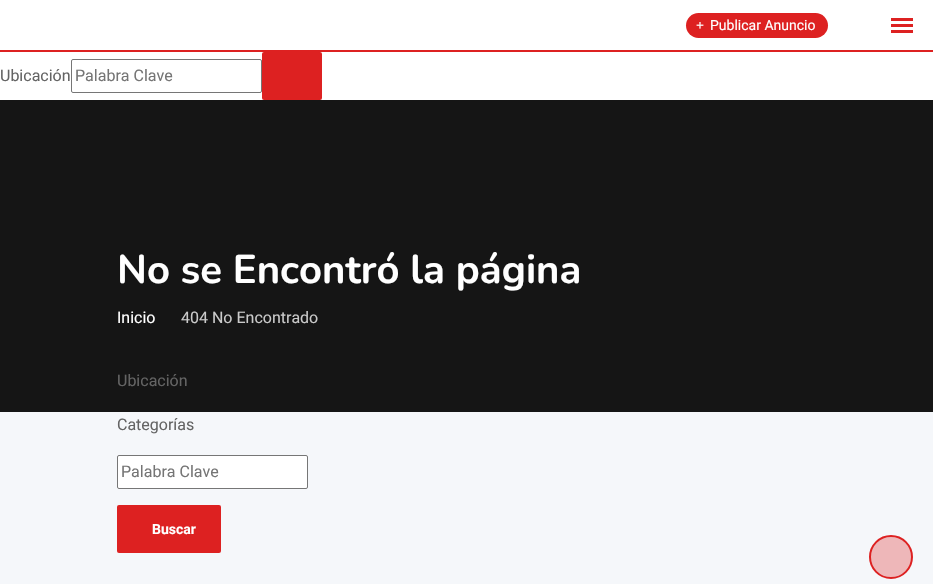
void draw(SkCanvas* canvas) {
    SkPaint paint;
    paint.setAntiAlias(true);
    auto face = [&](const char* family, int weight, float size, bool italic = false) {
        SkFontStyle style(weight, SkFontStyle::kNormal_Width,
            italic ? SkFontStyle::kItalic_Slant : SkFontStyle::kUpright_Slant);
        SkFont result(fontMgr->matchFamilyStyle(family, style), size);
        result.setSubpixel(true);
        return result;
    };
    auto write = [&](const char* s, float x, float y, const SkFont& font, SkColor color) {
        SkPaint ink(SkColor4f::FromColor(color));
        ink.setAntiAlias(true);
        canvas->drawString(s, x, y, font, ink);
    };
    auto block = [&](float x, float y, float w, float h, SkColor color) {
        SkPaint ink(SkColor4f::FromColor(color));
        ink.setAntiAlias(true);
        canvas->drawRect(SkRect::MakeXYWH(x, y, w, h), ink);
    };
    auto card = [&](float x, float y, float w, float h, float radius, SkColor color) {
        SkPaint ink(SkColor4f::FromColor(color));
        ink.setAntiAlias(true);
        canvas->drawRoundRect(SkRect::MakeXYWH(x, y, w, h), radius, radius, ink);
    };
    canvas->clear(SK_ColorWHITE);
    block(0, 50, 933, 2, SkColorSetRGB(221, 33, 33));
    card(686, 13, 142, 25, 12.5f, SkColorSetRGB(221, 33, 33));
    auto kFont1 = face("Liberation Serif", 700, 14);
    write("+", 696, 30, kFont1, SK_ColorWHITE);
    auto kFont2 = face("Roboto", 400, 14);
    write("Publicar Anuncio", 710, 30, kFont2, SK_ColorWHITE);
    block(891, 18, 22, 3, SkColorSetRGB(221, 33, 33));
    block(891, 24, 22, 3, SkColorSetRGB(221, 33, 33));
    block(891, 30, 22, 3, SkColorSetRGB(221, 33, 33));
    auto kFont3 = face("Roboto", 400, 16);
    write("Ubicación", 0, 81, kFont3, SkColorSetRGB(100, 100, 100));
    paint.setStyle(SkPaint::kStroke_Style);
    paint.setStrokeWidth(1);
    paint.setColor(SkColorSetRGB(118, 118, 118));
    canvas->drawRoundRect(SkRect::MakeXYWH(71.5f, 59.5f, 190, 33), 1.5f, 1.5f, paint);
    write("Palabra Clave", 75, 81, kFont3, SkColorSetRGB(117, 117, 117));
    card(262, 52, 60, 48, 2, SkColorSetRGB(221, 33, 33));
    block(0, 412, 933, 172, SkColorSetRGB(245, 247, 250));
    block(0, 100, 933, 312, SkColorSetRGB(21, 21, 21));
    auto kFont4 = face("Nunito", 200, 40);
    write("No se Encontró la página", 117, 283, kFont4, SK_ColorWHITE);
    write("Inicio", 117, 323, kFont3, SK_ColorWHITE);
    write("404 No Encontrado", 181, 323, kFont3, SkColorSetRGB(202, 202, 202));
    write("Ubicación", 117, 386, kFont3, SkColorSetRGB(100, 100, 100));
    write("Categorías", 117, 430, kFont3, SkColorSetRGB(100, 100, 100));
    paint.setStyle(SkPaint::kFill_Style);
    paint.setColor(SK_ColorWHITE);
    canvas->drawRoundRect(SkRect::MakeXYWH(117.5f, 455.5f, 190, 33), 1.5f, 1.5f, paint);
    paint.setStyle(SkPaint::kStroke_Style);
    paint.setColor(SkColorSetRGB(118, 118, 118));
    canvas->drawRoundRect(SkRect::MakeXYWH(117.5f, 455.5f, 190, 33), 1.5f, 1.5f, paint);
    write("Palabra Clave", 121, 477, kFont3, SkColorSetRGB(117, 117, 117));
    card(117, 505, 104, 48, 2, SkColorSetRGB(221, 33, 33));
    auto kFont5 = face("Roboto", 700, 14);
    write("Buscar", 152, 534, kFont5, SK_ColorWHITE);
    paint.setStyle(SkPaint::kFill_Style);
    paint.setColor(SkColorSetRGB(238, 183, 185));
    canvas->drawCircle(891, 557, 21, paint);
    paint.setStyle(SkPaint::kStroke_Style);
    paint.setStrokeWidth(2);
    paint.setColor(SkColorSetRGB(221, 33, 33));
    canvas->drawCircle(891, 557, 21, paint);
}
